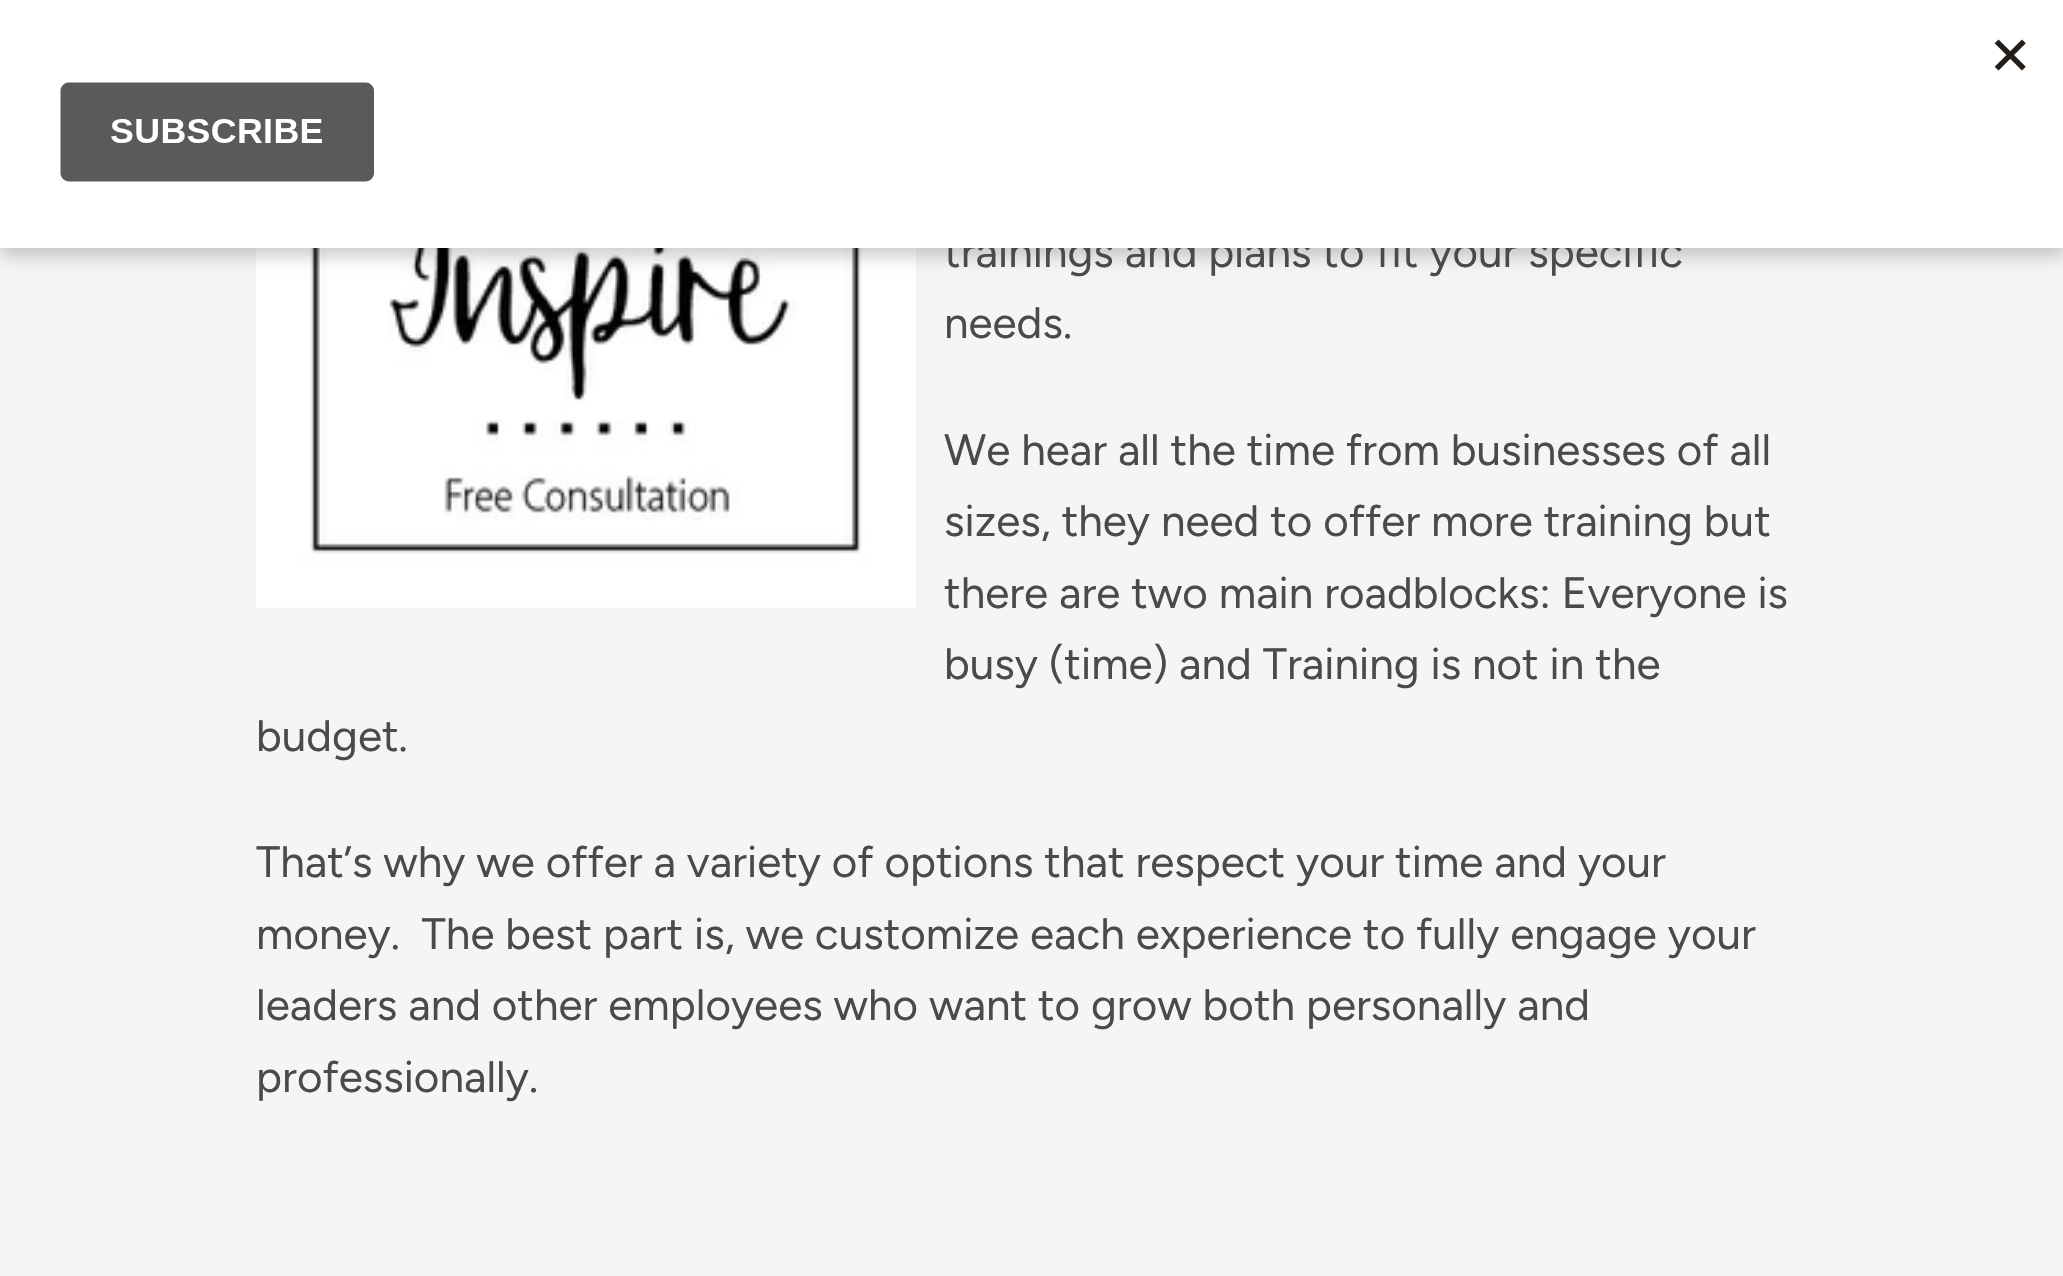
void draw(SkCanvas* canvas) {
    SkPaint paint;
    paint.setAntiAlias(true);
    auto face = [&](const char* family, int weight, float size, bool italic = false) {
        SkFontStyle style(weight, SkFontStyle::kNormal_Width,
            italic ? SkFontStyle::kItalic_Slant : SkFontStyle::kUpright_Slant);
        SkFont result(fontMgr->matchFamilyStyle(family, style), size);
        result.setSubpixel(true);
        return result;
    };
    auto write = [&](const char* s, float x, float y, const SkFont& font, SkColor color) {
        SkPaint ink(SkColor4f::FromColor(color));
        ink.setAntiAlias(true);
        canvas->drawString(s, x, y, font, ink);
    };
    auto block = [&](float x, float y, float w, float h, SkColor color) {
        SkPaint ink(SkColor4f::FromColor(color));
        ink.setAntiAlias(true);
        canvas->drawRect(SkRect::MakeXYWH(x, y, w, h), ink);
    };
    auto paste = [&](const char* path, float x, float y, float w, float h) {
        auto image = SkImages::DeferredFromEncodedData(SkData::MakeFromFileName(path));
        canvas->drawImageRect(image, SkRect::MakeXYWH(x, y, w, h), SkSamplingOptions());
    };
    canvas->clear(SkColorSetRGB(245, 245, 245));
    paste("pic2.png", 256, 248, 660, 360);
    paint.setColor(SkColorSetARGB(51, 0, 0, 0));
    paint.setMaskFilter(SkMaskFilter::MakeBlur(kNormal_SkBlurStyle, 8));
    canvas->drawRect(SkRect::MakeXYWH(0, 8, 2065, 248), paint);
    paint.setMaskFilter(nullptr);
    auto kFont1 = face("Figtree", 400, 44);
    write("trainings and plans to fit your specific", 944, 267, kFont1, SkColorSetRGB(74, 74, 74));
    block(0, 0, 2063, 248, SK_ColorWHITE);
    paste("pic1.png", 60, 39, 1966, 143);
    write("needs.", 944, 338, kFont1, SkColorSetRGB(74, 74, 74));
    write("We hear all the time from businesses of all", 944, 465, kFont1, SkColorSetRGB(74, 74, 74));
    write("sizes, they need to offer more training but", 944, 536, kFont1, SkColorSetRGB(74, 74, 74));
    write("there are two main roadblocks: Everyone is", 944, 608, kFont1, SkColorSetRGB(74, 74, 74));
    write("busy (time) and Training is not in the", 944, 679, kFont1, SkColorSetRGB(74, 74, 74));
    write("budget.", 256, 751, kFont1, SkColorSetRGB(74, 74, 74));
    write("That’s why we offer a variety of options that respect your time and your", 256, 877, kFont1, SkColorSetRGB(74, 74, 74));
    write("money.  The best part is, we customize each experience to fully engage your", 256, 949, kFont1, SkColorSetRGB(74, 74, 74));
    write("leaders and other employees who want to grow both personally and", 256, 1020, kFont1, SkColorSetRGB(74, 74, 74));
    write("professionally.", 256, 1092, kFont1, SkColorSetRGB(74, 74, 74));
}
